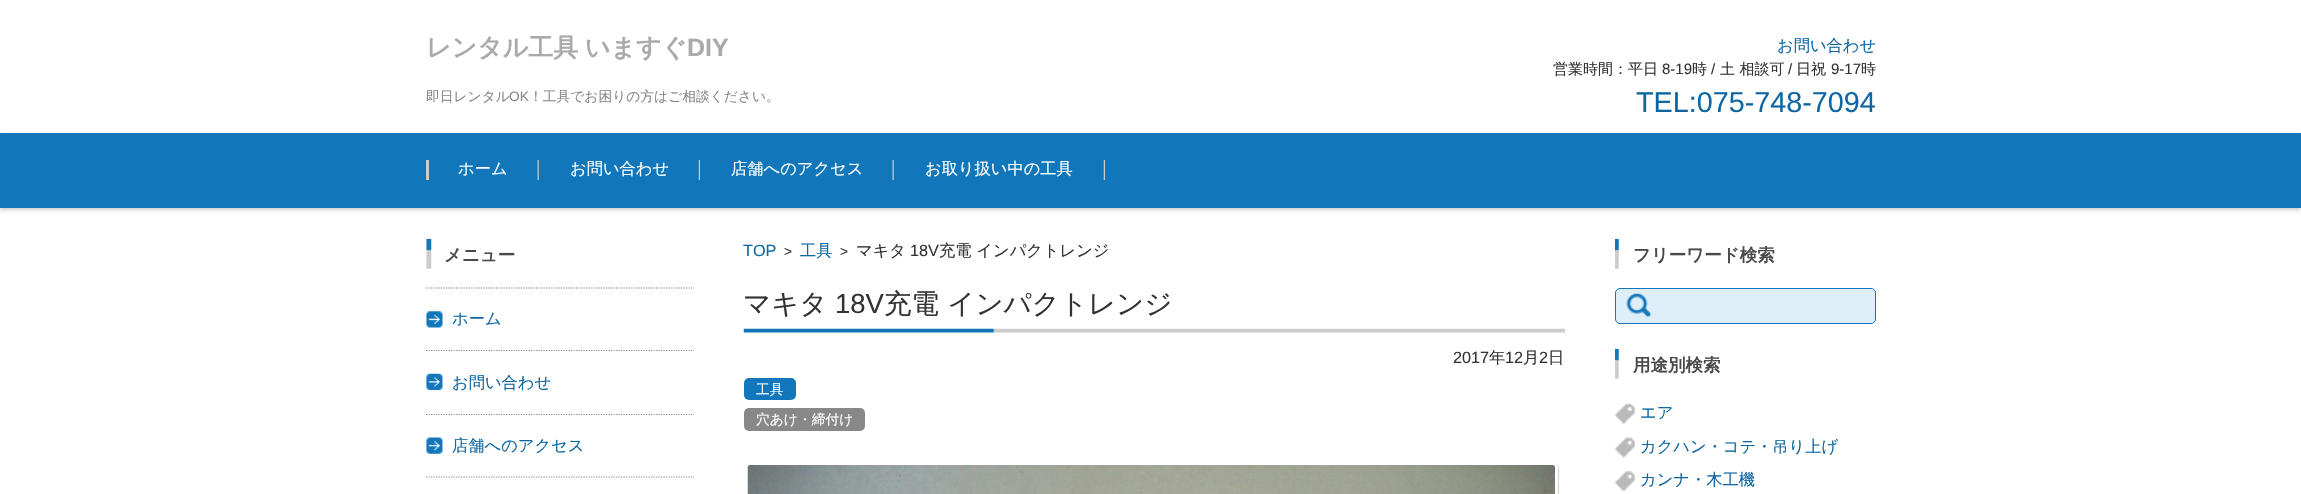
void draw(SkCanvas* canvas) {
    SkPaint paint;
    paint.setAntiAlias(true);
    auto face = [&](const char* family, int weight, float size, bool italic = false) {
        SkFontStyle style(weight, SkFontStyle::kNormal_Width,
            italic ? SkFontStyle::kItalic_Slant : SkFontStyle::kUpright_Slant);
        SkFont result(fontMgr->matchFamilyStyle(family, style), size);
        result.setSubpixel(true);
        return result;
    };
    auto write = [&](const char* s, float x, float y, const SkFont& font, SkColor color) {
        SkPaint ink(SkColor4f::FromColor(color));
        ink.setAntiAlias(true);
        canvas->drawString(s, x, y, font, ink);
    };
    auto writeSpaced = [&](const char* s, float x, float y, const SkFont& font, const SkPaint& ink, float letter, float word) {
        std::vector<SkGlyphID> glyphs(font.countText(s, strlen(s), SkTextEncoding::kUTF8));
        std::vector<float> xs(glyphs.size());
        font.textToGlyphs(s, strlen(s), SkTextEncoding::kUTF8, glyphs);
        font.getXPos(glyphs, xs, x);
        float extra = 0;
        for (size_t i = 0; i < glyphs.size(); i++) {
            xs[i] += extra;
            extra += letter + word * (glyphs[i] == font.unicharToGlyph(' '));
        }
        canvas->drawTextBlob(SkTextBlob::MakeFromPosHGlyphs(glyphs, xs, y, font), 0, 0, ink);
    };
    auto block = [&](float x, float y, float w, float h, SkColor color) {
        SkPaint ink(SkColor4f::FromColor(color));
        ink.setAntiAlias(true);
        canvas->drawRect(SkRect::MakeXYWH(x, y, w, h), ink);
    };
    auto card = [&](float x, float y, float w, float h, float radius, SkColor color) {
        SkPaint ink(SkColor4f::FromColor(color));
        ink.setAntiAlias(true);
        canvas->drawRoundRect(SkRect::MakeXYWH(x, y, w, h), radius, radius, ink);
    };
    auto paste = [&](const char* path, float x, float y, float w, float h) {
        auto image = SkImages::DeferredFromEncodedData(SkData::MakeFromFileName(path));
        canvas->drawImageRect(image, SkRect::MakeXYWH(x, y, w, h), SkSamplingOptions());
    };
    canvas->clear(SK_ColorWHITE);
    paint.setColor(SkColorSetARGB(51, 0, 0, 0));
    paint.setMaskFilter(SkMaskFilter::MakeBlur(kNormal_SkBlurStyle, 2));
    canvas->drawRect(SkRect::MakeXYWH(0, 135, 2301, 75), paint);
    paint.setMaskFilter(nullptr);
    block(0, 132, 2301, 1, SK_ColorWHITE);
    auto kFont1 = face("WenQuanYi Zen Hei", 700, 25);
    paint.setColor(SkColorSetRGB(170, 170, 170));
    writeSpaced("レンタル工具 いますぐ", 426, 56, kFont1, paint, 0, -1);
    auto kFont2 = face("Liberation Sans", 700, 25);
    write("DIY", 687, 56, kFont2, SkColorSetRGB(170, 170, 170));
    auto kFont3 = face("WenQuanYi Zen Hei", 500, 13.75f);
    write("即日レンタル", 426, 101, kFont3, SkColorSetRGB(136, 136, 136));
    auto kFont4 = face("Liberation Sans", 400, 13.75f);
    write("OK", 509, 101, kFont4, SkColorSetRGB(136, 136, 136));
    write("！工具でお困りの方はご相談ください。", 529, 101, kFont3, SkColorSetRGB(136, 136, 136));
    auto kFont5 = face("WenQuanYi Zen Hei", 500, 16.25f);
    write("お問い合わせ", 1777, 51, kFont5, SkColorSetRGB(14, 103, 163));
    auto kFont6 = face("WenQuanYi Zen Hei", 500, 15);
    write("営業時間：平日", 1553, 74, kFont6, SkColorSetRGB(51, 51, 51));
    auto kFont7 = face("Liberation Sans", 400, 15);
    write("8-19", 1662, 74, kFont7, SkColorSetRGB(51, 51, 51));
    write("時", 1692, 74, kFont6, SkColorSetRGB(51, 51, 51));
    write("/", 1711, 74, kFont7, SkColorSetRGB(51, 51, 51));
    write("土 相談可", 1720, 74, kFont6, SkColorSetRGB(51, 51, 51));
    write("/", 1788, 74, kFont7, SkColorSetRGB(51, 51, 51));
    write("日祝", 1796, 74, kFont6, SkColorSetRGB(51, 51, 51));
    write("9-17", 1831, 74, kFont7, SkColorSetRGB(51, 51, 51));
    write("時", 1861, 74, kFont6, SkColorSetRGB(51, 51, 51));
    auto kFont8 = face("Liberation Sans", 400, 28.75f);
    write("TEL:075-748-7094", 1636, 112, kFont8, SkColorSetRGB(14, 103, 163));
    block(0, 133, 2301, 75, SkColorSetRGB(17, 119, 186));
    block(426, 160, 3, 20, SkColorSetRGB(204, 204, 204));
    write("ホーム", 458, 174, kFont5, SK_ColorWHITE);
    paste("pic1.png", 537, 160, 2, 20);
    write("お問い合わせ", 570, 174, kFont5, SK_ColorWHITE);
    paste("pic2.png", 698, 160, 2, 20);
    write("店舗へのアクセス", 731, 174, kFont5, SK_ColorWHITE);
    paste("pic3.png", 892, 160, 213, 20);
    write("お取り扱い中の工具", 925, 174, kFont5, SK_ColorWHITE);
    paste("pic4.png", 426, 238, 6, 31);
    auto kFont9 = face("WenQuanYi Zen Hei", 700, 17.5f);
    write("メニュー", 444, 261, kFont9, SkColorSetRGB(73, 73, 73));
    paint.setStyle(SkPaint::kStroke_Style);
    paint.setStrokeWidth(1.2f);
    paint.setColor(SkColorSetRGB(136, 136, 136));
    paint.setPathEffect(SkDashPathEffect::Make({{1.25f, 1.25f}}, 0));
    canvas->drawPath(SkPathBuilder().moveTo(426, 288).lineTo(694, 288).detach(), paint);
    paint.setPathEffect(nullptr);
    paste("pic5.png", 426, 311, 17, 17);
    paint.setPathEffect(SkDashPathEffect::Make({{1.25f, 1.25f}}, 0));
    canvas->drawPath(SkPathBuilder().moveTo(426, 350.5f).lineTo(694, 350.5f).detach(), paint);
    paint.setPathEffect(nullptr);
    write("ホーム", 452, 324, kFont5, SkColorSetRGB(14, 103, 163));
    paste("pic6.png", 426, 373, 17, 17);
    paint.setPathEffect(SkDashPathEffect::Make({{1.25f, 1.25f}}, 0));
    canvas->drawPath(SkPathBuilder().moveTo(426, 414.5f).lineTo(694, 414.5f).detach(), paint);
    paint.setPathEffect(nullptr);
    write("お問い合わせ", 452, 388, kFont5, SkColorSetRGB(14, 103, 163));
    paste("pic7.png", 426, 437, 17, 17);
    paint.setPathEffect(SkDashPathEffect::Make({{1.25f, 1.25f}}, 0));
    canvas->drawPath(SkPathBuilder().moveTo(426, 477).lineTo(694, 477).detach(), paint);
    paint.setPathEffect(nullptr);
    write("店舗へのアクセス", 452, 451, kFont5, SkColorSetRGB(14, 103, 163));
    auto kFont10 = face("Liberation Sans", 400, 16.25f);
    write("TOP", 743, 256, kFont10, SkColorSetRGB(14, 103, 163));
    write(">", 784, 256, kFont4, SkColorSetRGB(51, 51, 51));
    write("工具", 800, 256, kFont5, SkColorSetRGB(14, 103, 163));
    write(">", 840, 256, kFont4, SkColorSetRGB(51, 51, 51));
    write("マキタ", 856, 256, kFont5, SkColorSetRGB(51, 51, 51));
    write("18V", 910, 256, kFont10, SkColorSetRGB(51, 51, 51));
    write("充電 インパクトレンジ", 939, 256, kFont5, SkColorSetRGB(51, 51, 51));
    paste("pic8.png", 743, 328, 822, 5);
    auto kFont11 = face("WenQuanYi Zen Hei", 500, 27.5f);
    write("マキタ", 743, 313, kFont11, SkColorSetRGB(51, 51, 51));
    auto kFont12 = face("Liberation Sans", 400, 27.5f);
    write("18V", 835, 313, kFont12, SkColorSetRGB(51, 51, 51));
    write("充電 インパクトレンジ", 884, 313, kFont11, SkColorSetRGB(51, 51, 51));
    write("2017", 1453, 363, kFont10, SkColorSetRGB(51, 51, 51));
    write("年", 1489, 363, kFont5, SkColorSetRGB(51, 51, 51));
    write("12", 1505, 363, kFont10, SkColorSetRGB(51, 51, 51));
    write("月", 1523, 363, kFont5, SkColorSetRGB(51, 51, 51));
    write("2", 1539, 363, kFont10, SkColorSetRGB(51, 51, 51));
    write("日", 1548, 363, kFont5, SkColorSetRGB(51, 51, 51));
    card(744, 378, 52, 22, 5, SkColorSetRGB(17, 119, 186));
    write("工具", 756, 394, kFont3, SK_ColorWHITE);
    card(744, 408, 121, 23, 5, SkColorSetRGB(136, 136, 136));
    write("穴あけ・締付け", 756, 424, kFont3, SK_ColorWHITE);
    paint.setStyle(SkPaint::kFill_Style);
    paint.setColor(SkColorSetARGB(51, 0, 0, 0));
    paint.setMaskFilter(SkMaskFilter::MakeBlur(kNormal_SkBlurStyle, 0.5f));
    canvas->drawRoundRect(SkRect::MakeXYWH(746, 464, 813, 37), 5, 5, paint);
    paint.setMaskFilter(nullptr);
    paint.setStyle(SkPaint::kStroke_Style);
    paint.setStrokeWidth(3);
    paint.setColor(SK_ColorWHITE);
    canvas->drawRoundRect(SkRect::MakeXYWH(746.5f, 464.5f, 810, 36), 3.5f, 3.5f, paint);
    paste("pic9.png", 747, 465, 808, 29);
    paste("pic10.png", 1615, 238, 4, 31);
    write("フリーワード検索", 1633, 261, kFont9, SkColorSetRGB(73, 73, 73));
    card(1615, 288, 261, 36, 5, SkColorSetRGB(223, 239, 249));
    paste("pic11.png", 1626, 293, 26, 25);
    paint.setStrokeWidth(1);
    paint.setColor(SkColorSetRGB(17, 119, 186));
    canvas->drawRoundRect(SkRect::MakeXYWH(1615.5f, 288.5f, 260, 35), 4.5f, 4.5f, paint);
    paste("pic10.png", 1615, 348, 4, 31);
    write("用途別検索", 1633, 371, kFont9, SkColorSetRGB(73, 73, 73));
    paste("pic12.png", 1615, 403, 20, 21);
    write("エア", 1640, 418, kFont5, SkColorSetRGB(14, 103, 163));
    paste("pic13.png", 1615, 437, 20, 21);
    write("カクハン・コテ・吊り上げ", 1640, 452, kFont5, SkColorSetRGB(14, 103, 163));
    paste("pic14.png", 1615, 471, 20, 21);
    write("カンナ・木工機", 1640, 485, kFont5, SkColorSetRGB(14, 103, 163));
}
